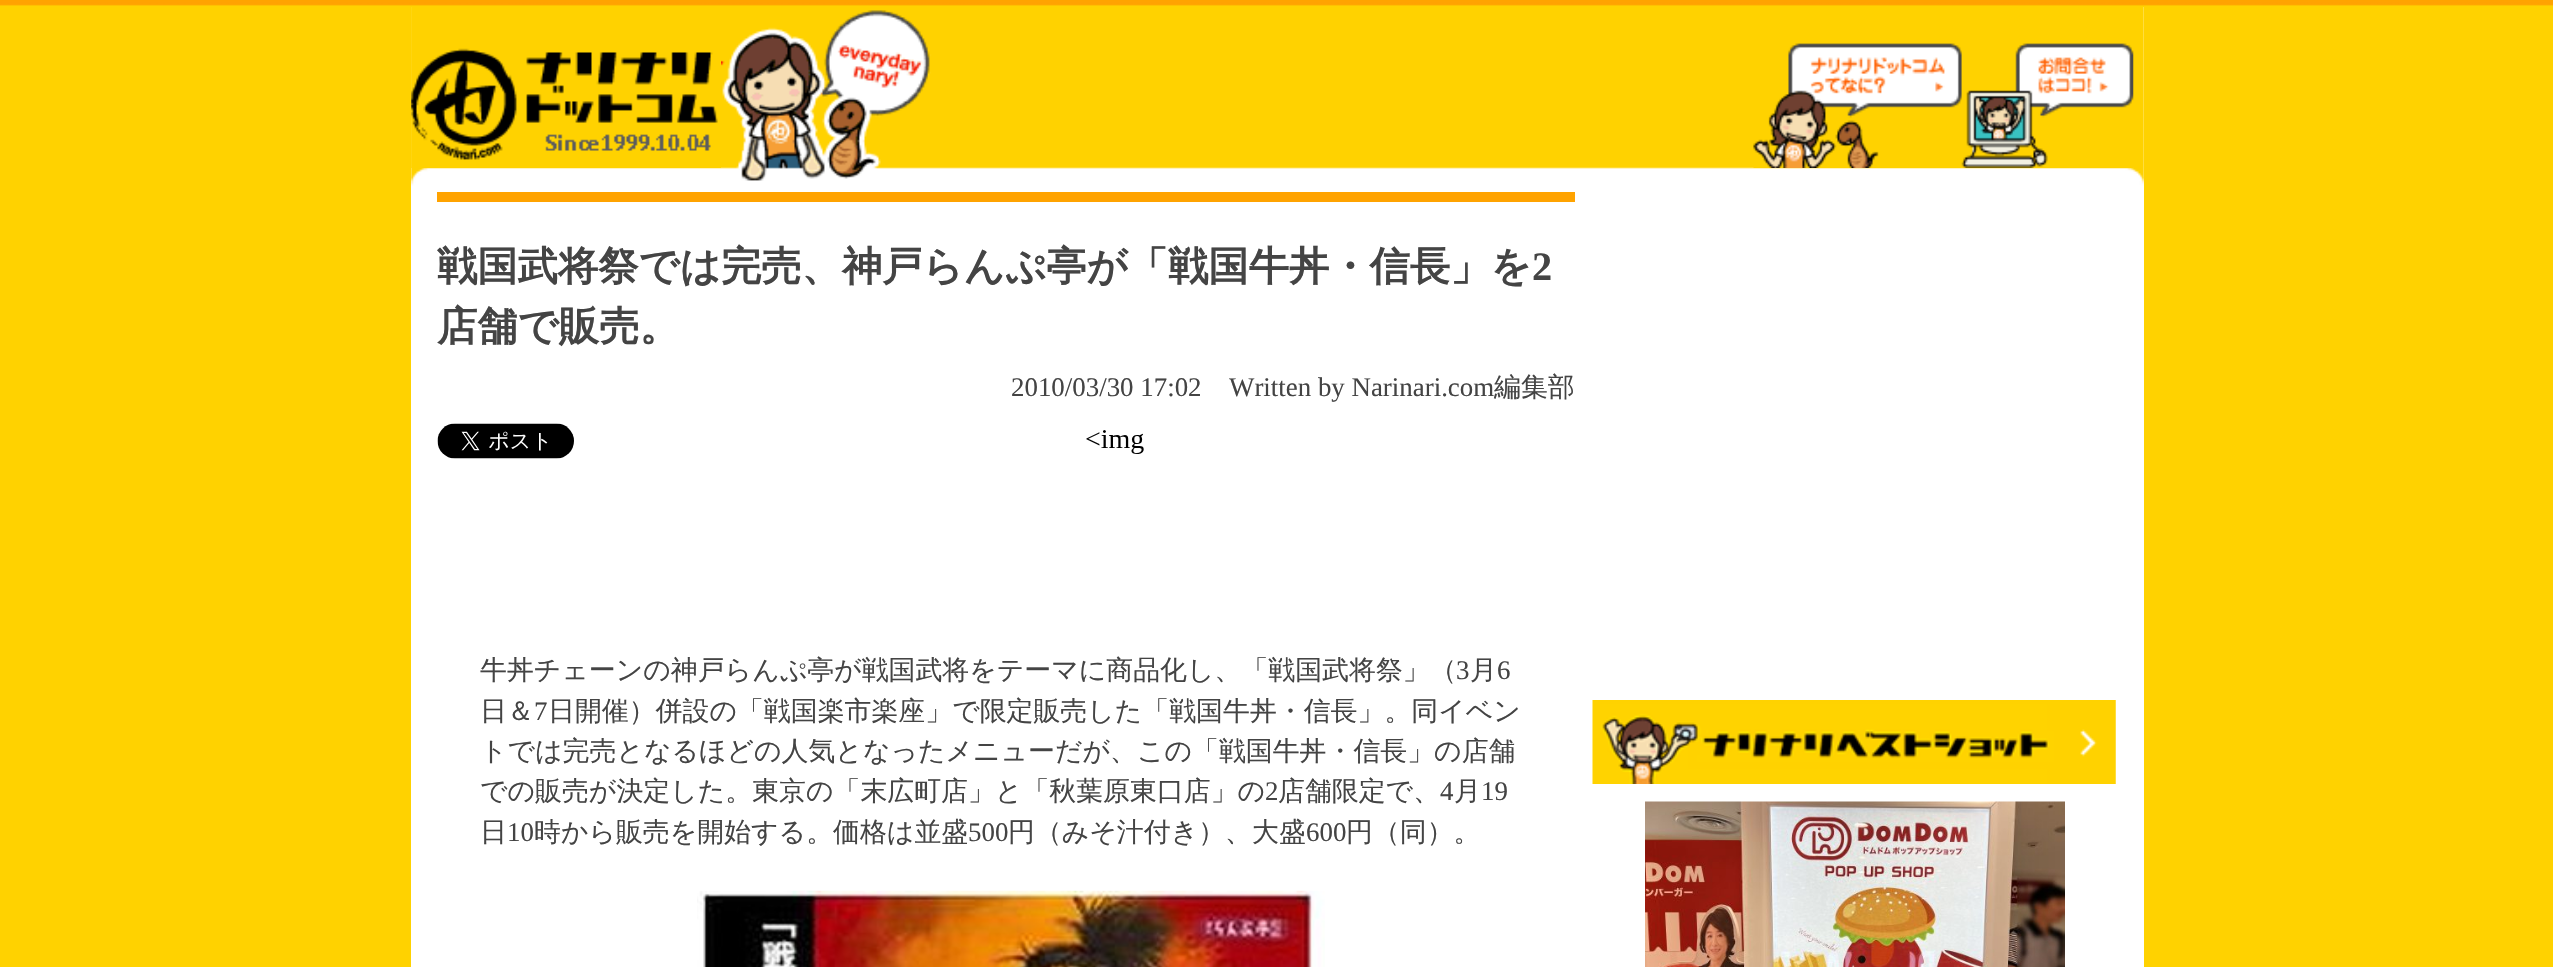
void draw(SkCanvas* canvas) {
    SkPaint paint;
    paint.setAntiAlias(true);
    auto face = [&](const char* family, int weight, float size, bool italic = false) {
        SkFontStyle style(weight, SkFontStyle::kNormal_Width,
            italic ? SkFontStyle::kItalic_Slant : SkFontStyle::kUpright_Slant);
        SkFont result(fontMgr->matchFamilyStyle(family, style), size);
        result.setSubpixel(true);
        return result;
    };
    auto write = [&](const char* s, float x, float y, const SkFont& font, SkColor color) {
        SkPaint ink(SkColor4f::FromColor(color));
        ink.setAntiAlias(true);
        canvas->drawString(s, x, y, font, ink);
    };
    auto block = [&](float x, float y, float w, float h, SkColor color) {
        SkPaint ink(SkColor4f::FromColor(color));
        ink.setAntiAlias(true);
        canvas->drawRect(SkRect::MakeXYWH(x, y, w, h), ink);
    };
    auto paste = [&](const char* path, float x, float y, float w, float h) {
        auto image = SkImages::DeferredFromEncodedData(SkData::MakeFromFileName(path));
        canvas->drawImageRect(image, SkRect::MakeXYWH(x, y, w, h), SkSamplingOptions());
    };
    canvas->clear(SkColorSetRGB(255, 210, 0));
    paste("pic1.png", 0, 0, 2553, 6);
    block(411, 7, 1733, 960, SK_ColorWHITE);
    paste("pic2.png", 411, 7, 1733, 179);
    paste("pic3.png", 411, 7, 310, 161);
    paste("pic4.png", 1753, 43, 209, 125);
    paste("pic5.png", 1961, 43, 173, 125);
    block(437, 192, 1138, 10, SkColorSetRGB(255, 163, 0));
    auto kFont1 = face("WenQuanYi Zen Hei", 700, 40.3f);
    write("戦国武将祭では完売、神戸らんぷ亭が「戦国牛丼・信長」を", 437, 280, kFont1, SkColorSetRGB(68, 68, 68));
    auto kFont2 = face("Liberation Serif", 700, 40.3f);
    write("2", 1532, 280, kFont2, SkColorSetRGB(68, 68, 68));
    write("店舗で販売。", 437, 340, kFont1, SkColorSetRGB(68, 68, 68));
    auto kFont3 = face("Liberation Serif", 400, 26.9f);
    write("2010/03/30 17:02", 1011, 396, kFont3, SkColorSetRGB(68, 68, 68));
    write("Written by Narinari.com", 1229, 396, kFont3, SkColorSetRGB(68, 68, 68));
    auto kFont4 = face("WenQuanYi Zen Hei", 500, 26.9f);
    write("編集部", 1494, 396, kFont4, SkColorSetRGB(68, 68, 68));
    paste("pic6.png", 437, 423, 137, 36);
    paste("pic7.png", 1086, 430, 58, 24);
    write("牛丼チェーンの神戸らんぷ亭が戦国武将をテーマに商品化し、「戦国武将祭」（", 480, 679, kFont4, SkColorSetRGB(68, 68, 68));
    write("3", 1456, 679, kFont3, SkColorSetRGB(68, 68, 68));
    write("月", 1470, 679, kFont4, SkColorSetRGB(68, 68, 68));
    write("6", 1497, 679, kFont3, SkColorSetRGB(68, 68, 68));
    write("日＆", 480, 720, kFont4, SkColorSetRGB(68, 68, 68));
    write("7", 534, 720, kFont3, SkColorSetRGB(68, 68, 68));
    write("日開催）併設の「戦国楽市楽座」で限定販売した「戦国牛丼・信長」。同イベン", 548, 720, kFont4, SkColorSetRGB(68, 68, 68));
    write("トでは完売となるほどの人気となったメニューだが、この「戦国牛丼・信長」の店舗", 480, 760, kFont4, SkColorSetRGB(68, 68, 68));
    write("での販売が決定した。東京の「末広町店」と「秋葉原東口店」の", 480, 800, kFont4, SkColorSetRGB(68, 68, 68));
    write("2", 1265, 800, kFont3, SkColorSetRGB(68, 68, 68));
    write("店舗限定で、", 1278, 800, kFont4, SkColorSetRGB(68, 68, 68));
    write("4", 1440, 800, kFont3, SkColorSetRGB(68, 68, 68));
    write("月", 1454, 800, kFont4, SkColorSetRGB(68, 68, 68));
    write("19", 1481, 800, kFont3, SkColorSetRGB(68, 68, 68));
    write("日", 480, 841, kFont4, SkColorSetRGB(68, 68, 68));
    write("10", 507, 841, kFont3, SkColorSetRGB(68, 68, 68));
    write("時から販売を開始する。価格は並盛", 534, 841, kFont4, SkColorSetRGB(68, 68, 68));
    write("500", 968, 841, kFont3, SkColorSetRGB(68, 68, 68));
    write("円（みそ汁付き）、大盛", 1008, 841, kFont4, SkColorSetRGB(68, 68, 68));
    write("600", 1306, 841, kFont3, SkColorSetRGB(68, 68, 68));
    write("円（同）。", 1346, 841, kFont4, SkColorSetRGB(68, 68, 68));
    paste("pic8.png", 697, 890, 628, 77);
    paste("pic9.png", 1592, 700, 524, 84);
    paste("pic10.png", 1645, 801, 420, 166);
}
